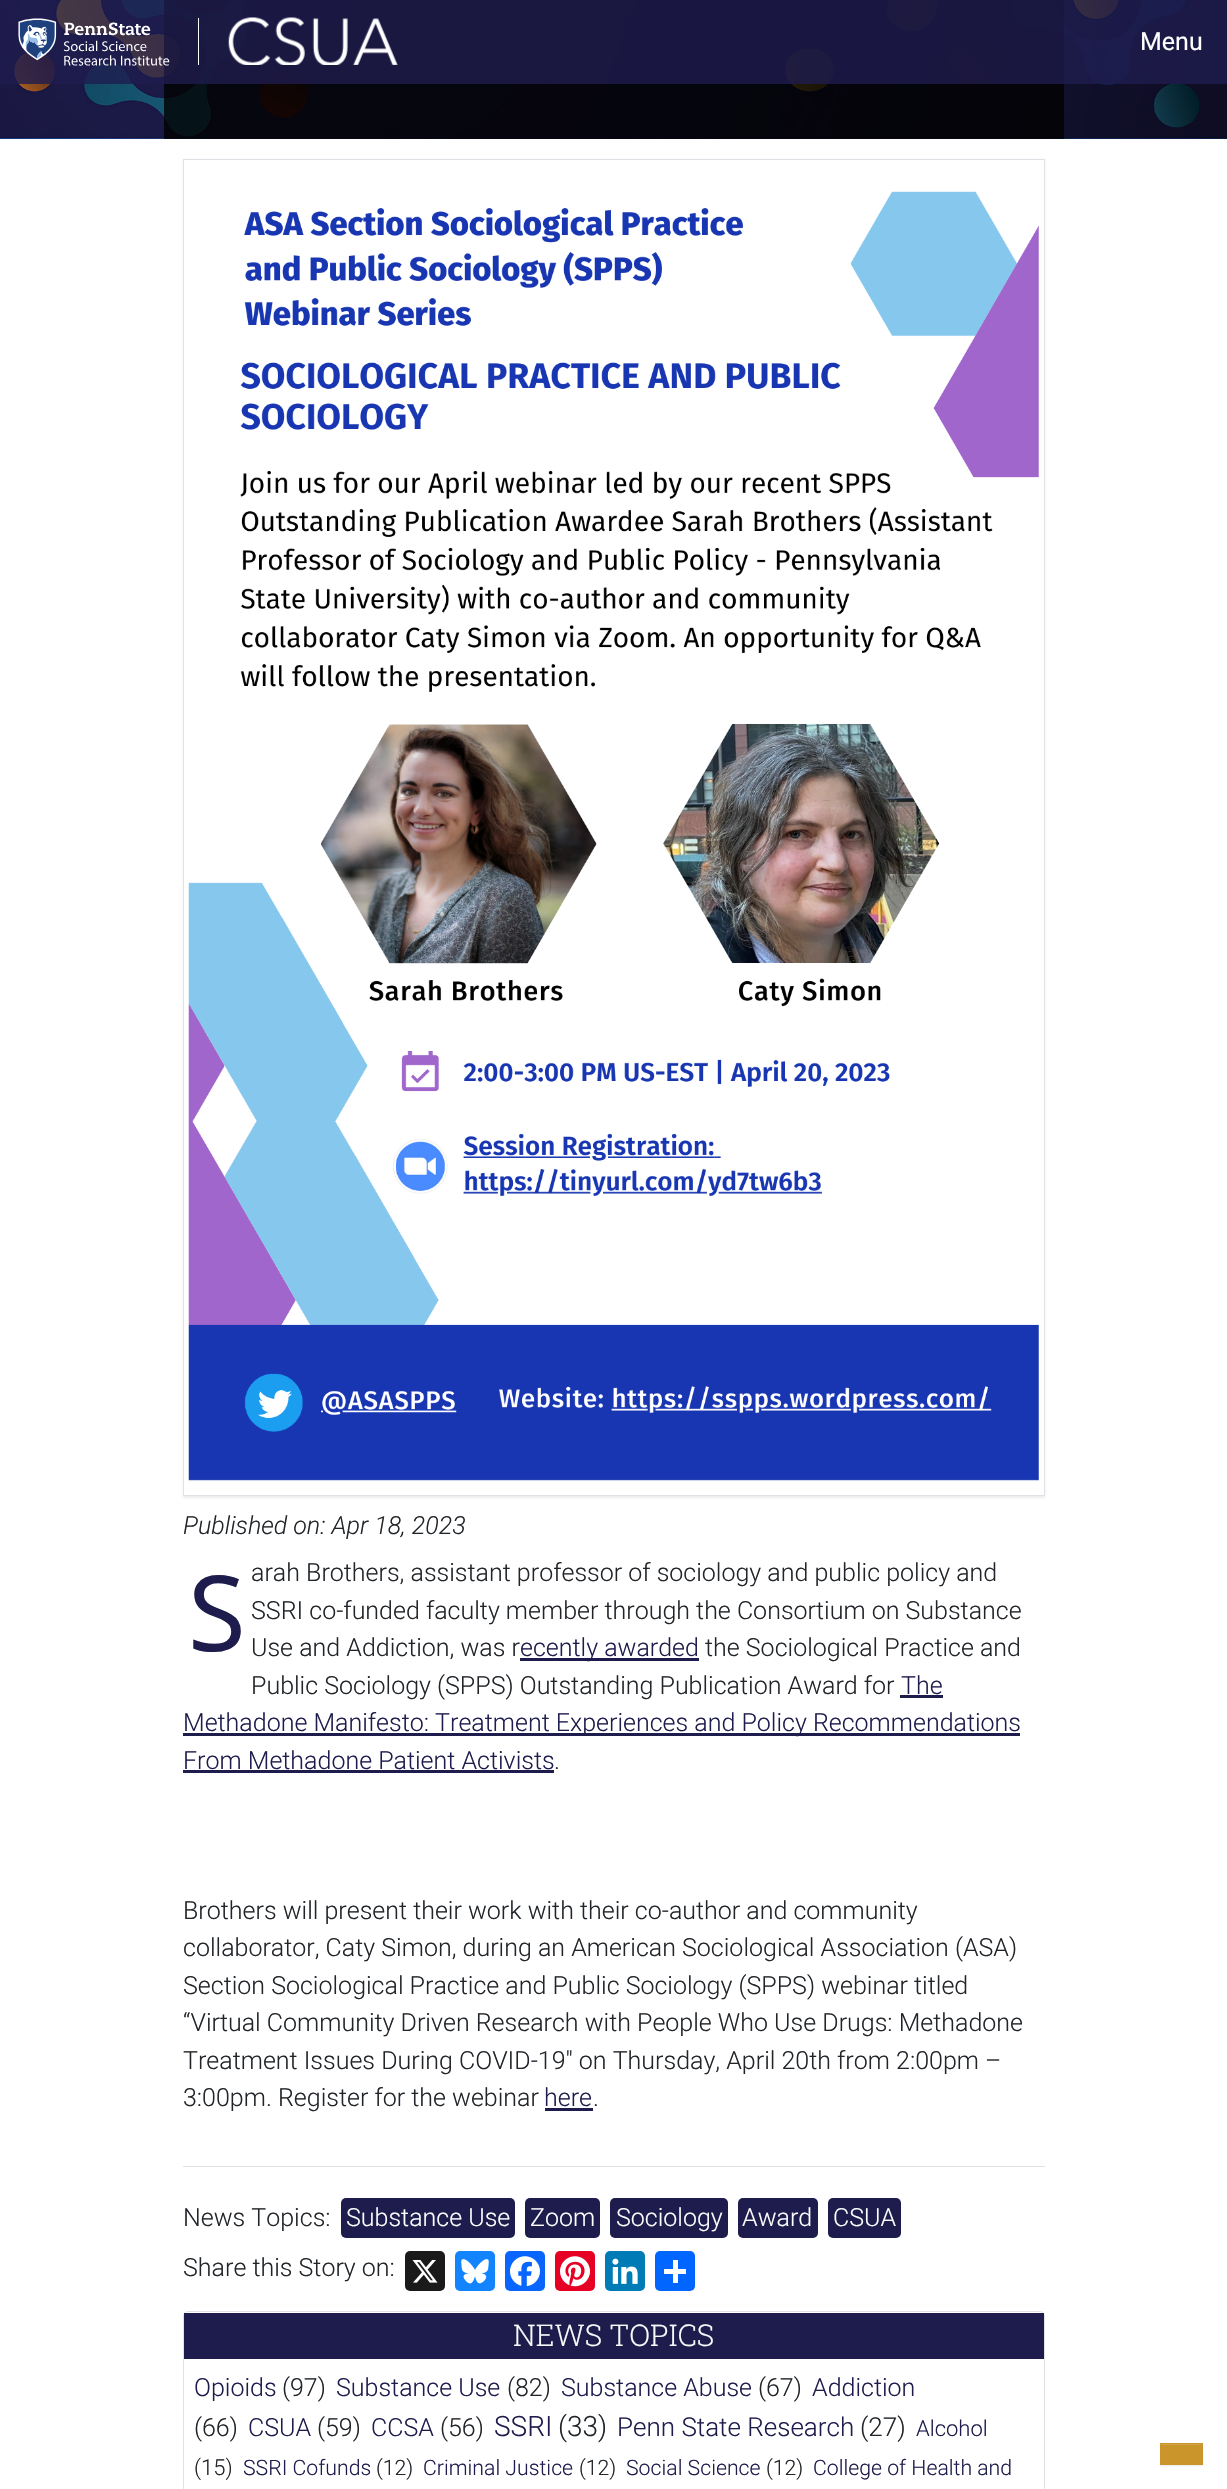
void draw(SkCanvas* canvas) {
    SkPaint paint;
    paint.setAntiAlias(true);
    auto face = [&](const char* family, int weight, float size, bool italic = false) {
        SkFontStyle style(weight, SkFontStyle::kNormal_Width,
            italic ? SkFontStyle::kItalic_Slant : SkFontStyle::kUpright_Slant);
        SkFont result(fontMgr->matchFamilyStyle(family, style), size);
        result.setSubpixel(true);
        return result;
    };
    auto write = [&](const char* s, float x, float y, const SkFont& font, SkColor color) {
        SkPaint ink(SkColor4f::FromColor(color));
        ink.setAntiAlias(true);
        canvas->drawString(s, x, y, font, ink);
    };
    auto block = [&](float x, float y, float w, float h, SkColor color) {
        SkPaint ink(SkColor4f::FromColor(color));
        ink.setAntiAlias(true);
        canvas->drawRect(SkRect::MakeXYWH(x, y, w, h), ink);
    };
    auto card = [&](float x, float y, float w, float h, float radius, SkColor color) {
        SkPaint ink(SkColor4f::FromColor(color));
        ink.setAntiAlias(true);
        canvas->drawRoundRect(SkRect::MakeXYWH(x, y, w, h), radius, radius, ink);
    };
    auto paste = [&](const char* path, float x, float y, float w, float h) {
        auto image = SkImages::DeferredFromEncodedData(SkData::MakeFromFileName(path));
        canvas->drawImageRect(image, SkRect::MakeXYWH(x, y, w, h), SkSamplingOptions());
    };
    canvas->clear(SK_ColorWHITE);
    paste("pic3.png", 0, 0, 1227, 139);
    block(164, 0, 900, 139, SkColorSetARGB(204, 0, 0, 0));
    block(0, 0, 1227, 84, SkColorSetARGB(204, 30, 28, 77));
    paste("pic1.png", 18, 18, 152, 48);
    block(198, 18, 1, 47, SkColorSetRGB(248, 249, 250));
    paste("pic2.png", 228, 17, 170, 48);
    auto kFont1 = face("Roboto", 400, 25);
    write("Menu", 1140, 50, kFont1, SK_ColorWHITE);
    canvas->save();
    canvas->clipPath(SkPathBuilder(SkPathFillType::kEvenOdd).moveTo(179, 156).lineTo(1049, 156).lineTo(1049, 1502).lineTo(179, 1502).close().moveTo(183, 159).lineTo(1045, 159).lineTo(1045, 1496).lineTo(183, 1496).close().detach(), true);
    paint.setColor(SkColorSetARGB(18, 0, 0, 0));
    paint.setMaskFilter(SkMaskFilter::MakeBlur(kNormal_SkBlurStyle, 1));
    canvas->drawRect(SkRect::MakeXYWH(183, 160, 862, 1338), paint);
    paint.setMaskFilter(nullptr);
    canvas->restore();
    paint.setStyle(SkPaint::kStroke_Style);
    paint.setStrokeWidth(1);
    paint.setColor(SkColorSetRGB(222, 226, 230));
    canvas->drawRect(SkRect::MakeXYWH(183.5f, 159.5f, 861, 1336), paint);
    paste("pic4.png", 188, 191, 851, 1290);
    auto kFont2 = face("Roboto", 300, 25, true);
    write("Published on: Apr 18, 2023", 183, 1534, kFont2, SkColorSetRGB(33, 37, 41));
    block(183, 2166, 862, 1, SkColorSetRGB(222, 226, 230));
    auto kFont3 = face("Noto Sans", 400, 105);
    write("S", 188, 1651, kFont3, SkColorSetRGB(30, 28, 77));
    auto kFont4 = face("Roboto", 300, 25);
    write("arah Brothers, assistant professor of sociology and public policy and", 251, 1581, kFont4, SkColorSetRGB(33, 37, 41));
    write("SSRI co-funded faculty member through the Consortium on Substance", 251, 1619, kFont4, SkColorSetRGB(33, 37, 41));
    write("Use and Addiction, was r", 251, 1656, kFont4, SkColorSetRGB(33, 37, 41));
    block(520, 1658, 179, 3, SkColorSetRGB(30, 28, 77));
    write("ecently awarded", 520, 1656, kFont4, SkColorSetRGB(30, 28, 77));
    write("the Sociological Practice and", 705, 1656, kFont4, SkColorSetRGB(33, 37, 41));
    write("Public Sociology (SPPS) Outstanding Publication Award for", 251, 1694, kFont4, SkColorSetRGB(33, 37, 41));
    write("The", 901, 1694, kFont4, SkColorSetRGB(30, 28, 77));
    block(900, 1695, 43, 3, SkColorSetRGB(30, 28, 77));
    block(183, 1733, 837, 3, SkColorSetRGB(30, 28, 77));
    write("Methadone Manifesto: Treatment Experiences and Policy Recommendations", 183, 1731, kFont4, SkColorSetRGB(30, 28, 77));
    write("From Methadone Patient Activists", 183, 1769, kFont4, SkColorSetRGB(30, 28, 77));
    block(183, 1770, 371, 3, SkColorSetRGB(30, 28, 77));
    write(".", 554, 1769, kFont4, SkColorSetRGB(33, 37, 41));
    write("Brothers will present their work with their co-author and community", 183, 1919, kFont4, SkColorSetRGB(33, 37, 41));
    write("collaborator, Caty Simon, during an American Sociological Association (ASA)", 183, 1956, kFont4, SkColorSetRGB(33, 37, 41));
    write("Section Sociological Practice and Public Sociology (SPPS) webinar titled", 183, 1994, kFont4, SkColorSetRGB(33, 37, 41));
    write("“Virtual Community Driven Research with People Who Use Drugs: Methadone", 183, 2031, kFont4, SkColorSetRGB(33, 37, 41));
    write("Treatment Issues During COVID-19\" on Thursday, April 20th from 2:00pm –", 183, 2069, kFont4, SkColorSetRGB(33, 37, 41));
    write("3:00pm. Register for the webinar", 183, 2106, kFont4, SkColorSetRGB(33, 37, 41));
    write("here", 544, 2106, kFont4, SkColorSetRGB(30, 28, 77));
    block(545, 2108, 48, 3, SkColorSetRGB(30, 28, 77));
    write(".", 593, 2106, kFont4, SkColorSetRGB(33, 37, 41));
    write("News Topics:", 183, 2226, kFont4, SkColorSetRGB(33, 37, 41));
    card(341, 2198, 174, 40, 5, SkColorSetRGB(30, 28, 77));
    write("Substance Use", 346, 2226, kFont4, SK_ColorWHITE);
    card(525, 2198, 75, 40, 5, SkColorSetRGB(30, 28, 77));
    write("Zoom", 530, 2226, kFont4, SK_ColorWHITE);
    card(610, 2198, 118, 40, 5, SkColorSetRGB(30, 28, 77));
    write("Sociology", 616, 2226, kFont4, SK_ColorWHITE);
    card(738, 2198, 80, 40, 5, SkColorSetRGB(30, 28, 77));
    write("Award", 742, 2226, kFont4, SK_ColorWHITE);
    card(828, 2198, 73, 40, 5, SkColorSetRGB(30, 28, 77));
    write("CSUA", 833, 2226, kFont4, SK_ColorWHITE);
    write("Share this Story on:", 183, 2276, kFont4, SkColorSetRGB(33, 37, 41));
    card(405, 2251, 40, 40, 5, SkColorSetRGB(26, 26, 26));
    paste("pic5.png", 412, 2260, 26, 23);
    card(455, 2251, 40, 40, 5, SkColorSetRGB(18, 133, 254));
    paste("pic6.png", 461, 2259, 28, 25);
    card(505, 2251, 40, 40, 5, SkColorSetRGB(8, 102, 255));
    paste("pic7.png", 510, 2256, 30, 31);
    card(555, 2251, 40, 40, 5, SkColorSetRGB(230, 0, 35));
    paste("pic8.png", 560, 2256, 30, 31);
    card(605, 2251, 40, 40, 5, SkColorSetRGB(0, 123, 181));
    paste("pic9.png", 612, 2258, 26, 26);
    card(655, 2251, 40, 40, 5, SkColorSetRGB(1, 102, 255));
    block(673, 2260, 5, 23, SK_ColorWHITE);
    block(664, 2269, 22, 5, SK_ColorWHITE);
    canvas->drawRoundRect(SkRect::MakeXYWH(183.5f, 2311.5f, 861, 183), 4.5f, 4.5f, paint);
    block(184, 2313, 860, 46, SkColorSetRGB(30, 28, 77));
    auto kFont5 = face("Roboto Slab", 300, 30);
    write("NEWS TOPICS", 513, 2346, kFont5, SkColorSetRGB(248, 249, 250));
    write("Opioids", 194, 2396, kFont4, SkColorSetRGB(30, 28, 77));
    write("(97)", 282, 2396, kFont4, SkColorSetRGB(33, 37, 41));
    write("Substance Use", 336, 2396, kFont4, SkColorSetRGB(30, 28, 77));
    write("(82)", 507, 2396, kFont4, SkColorSetRGB(33, 37, 41));
    write("Substance Abuse", 561, 2396, kFont4, SkColorSetRGB(30, 28, 77));
    write("(67)", 758, 2396, kFont4, SkColorSetRGB(33, 37, 41));
    write("Addiction", 812, 2396, kFont4, SkColorSetRGB(30, 28, 77));
    write("(66)", 194, 2436, kFont4, SkColorSetRGB(33, 37, 41));
    write("CSUA", 248, 2436, kFont4, SkColorSetRGB(30, 28, 77));
    write("(59)", 317, 2436, kFont4, SkColorSetRGB(33, 37, 41));
    write("CCSA", 371, 2436, kFont4, SkColorSetRGB(30, 28, 77));
    write("(56)", 440, 2436, kFont4, SkColorSetRGB(33, 37, 41));
    auto kFont6 = face("Roboto", 300, 28);
    write("SSRI", 494, 2436, kFont6, SkColorSetRGB(30, 28, 77));
    write("(33)", 558, 2436, kFont6, SkColorSetRGB(33, 37, 41));
    auto kFont7 = face("Roboto", 300, 26);
    write("Penn State Research", 617, 2436, kFont7, SkColorSetRGB(30, 28, 77));
    write("(27)", 860, 2436, kFont7, SkColorSetRGB(33, 37, 41));
    auto kFont8 = face("Roboto", 300, 22);
    write("Alcohol", 916, 2436, kFont8, SkColorSetRGB(30, 28, 77));
    write("(15)", 194, 2475, kFont8, SkColorSetRGB(33, 37, 41));
    auto kFont9 = face("Roboto", 300, 21.25f);
    write("SSRI Cofunds", 243, 2475, kFont9, SkColorSetRGB(30, 28, 77));
    write("(12)", 376, 2475, kFont9, SkColorSetRGB(33, 37, 41));
    write("Criminal Justice", 423, 2475, kFont9, SkColorSetRGB(30, 28, 77));
    write("(12)", 579, 2475, kFont9, SkColorSetRGB(33, 37, 41));
    write("Social Science", 626, 2475, kFont9, SkColorSetRGB(30, 28, 77));
    write("(12)", 766, 2475, kFont9, SkColorSetRGB(33, 37, 41));
    write("College of Health and", 813, 2475, kFont9, SkColorSetRGB(30, 28, 77));
    paint.setStyle(SkPaint::kFill_Style);
    paint.setColor(SkColorSetARGB(18, 0, 0, 0));
    paint.setMaskFilter(SkMaskFilter::MakeBlur(kNormal_SkBlurStyle, 0.5f));
    canvas->drawRect(SkRect::MakeXYWH(1160, 2444, 43, 22), paint);
    paint.setMaskFilter(nullptr);
    block(1160, 2443, 43, 22, SkColorSetRGB(202, 149, 42));
    block(1161, 2444, 40, 1, SkColorSetRGB(210, 165, 74));
}
